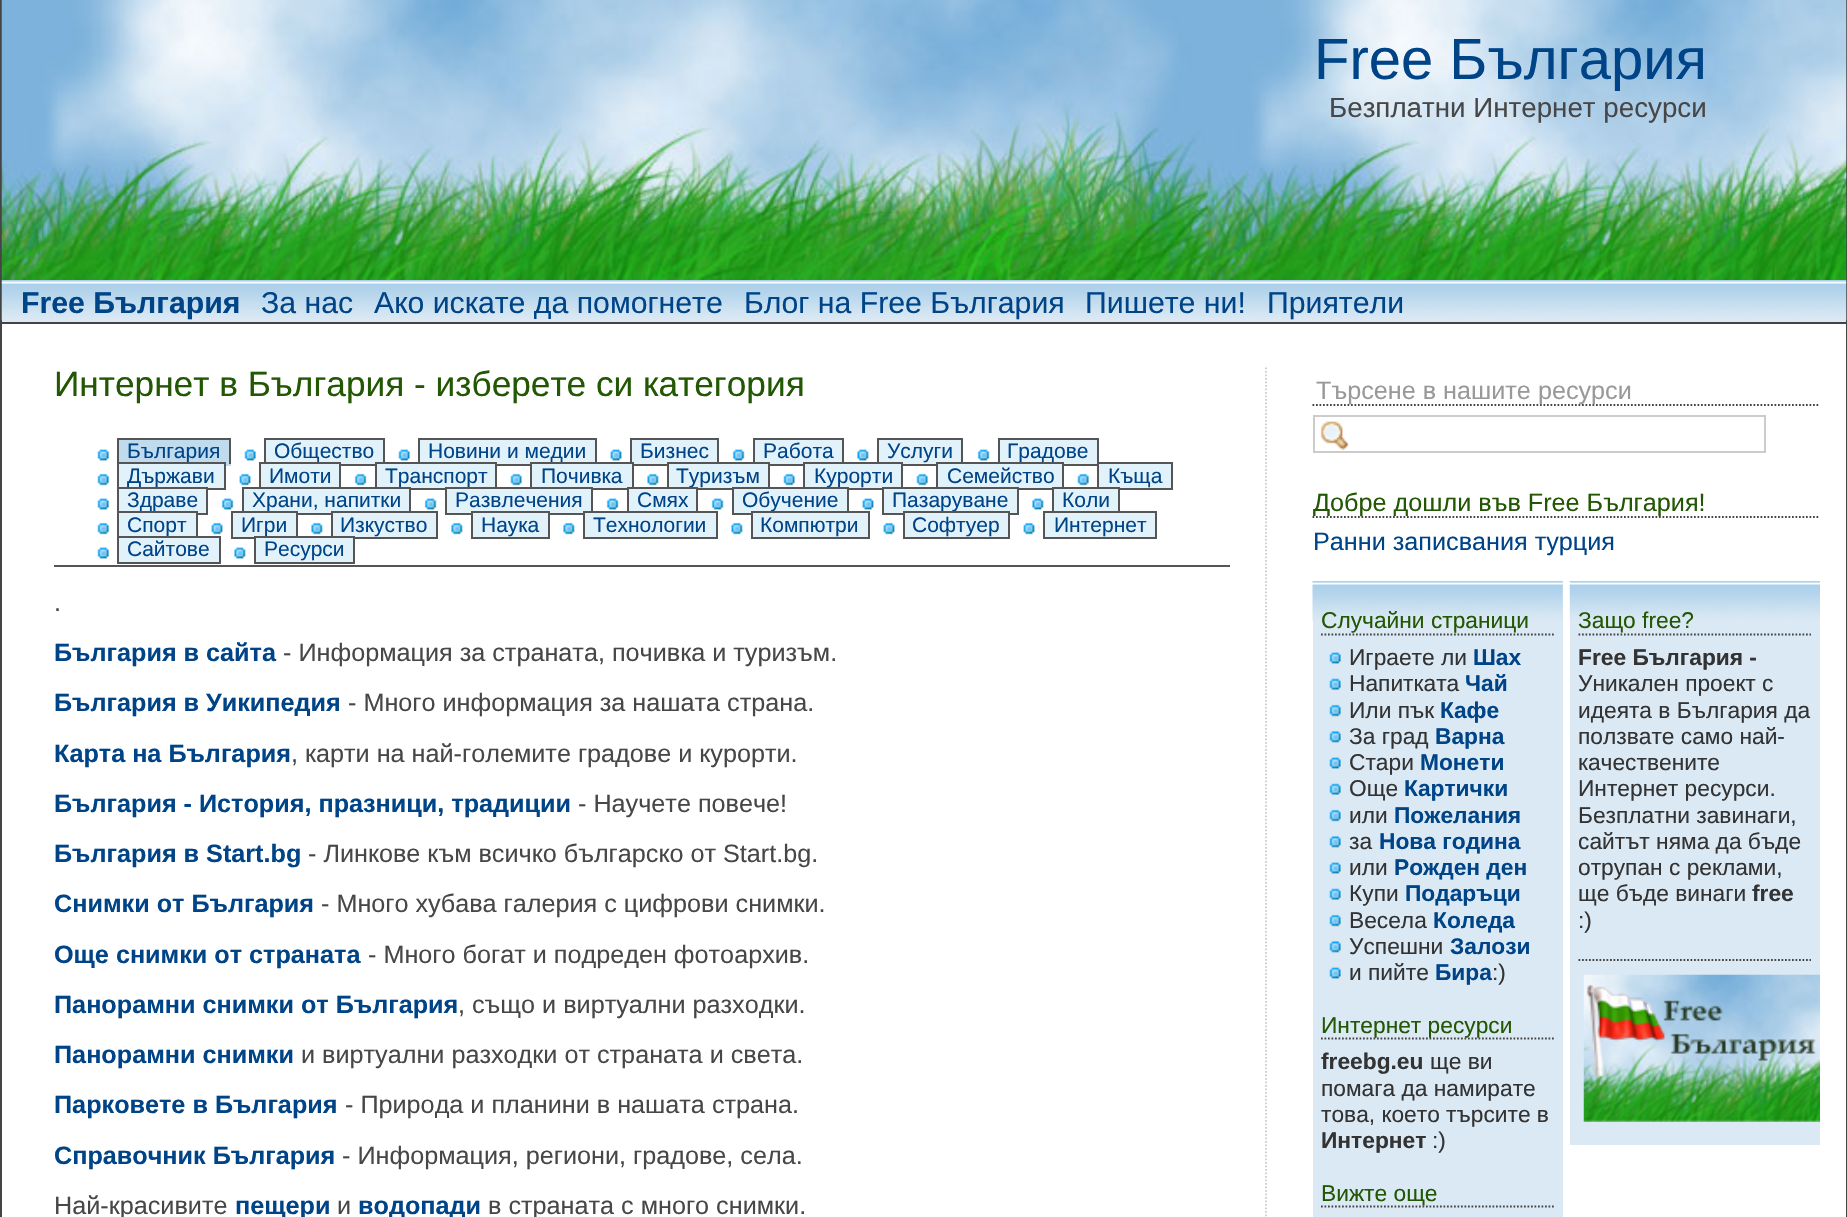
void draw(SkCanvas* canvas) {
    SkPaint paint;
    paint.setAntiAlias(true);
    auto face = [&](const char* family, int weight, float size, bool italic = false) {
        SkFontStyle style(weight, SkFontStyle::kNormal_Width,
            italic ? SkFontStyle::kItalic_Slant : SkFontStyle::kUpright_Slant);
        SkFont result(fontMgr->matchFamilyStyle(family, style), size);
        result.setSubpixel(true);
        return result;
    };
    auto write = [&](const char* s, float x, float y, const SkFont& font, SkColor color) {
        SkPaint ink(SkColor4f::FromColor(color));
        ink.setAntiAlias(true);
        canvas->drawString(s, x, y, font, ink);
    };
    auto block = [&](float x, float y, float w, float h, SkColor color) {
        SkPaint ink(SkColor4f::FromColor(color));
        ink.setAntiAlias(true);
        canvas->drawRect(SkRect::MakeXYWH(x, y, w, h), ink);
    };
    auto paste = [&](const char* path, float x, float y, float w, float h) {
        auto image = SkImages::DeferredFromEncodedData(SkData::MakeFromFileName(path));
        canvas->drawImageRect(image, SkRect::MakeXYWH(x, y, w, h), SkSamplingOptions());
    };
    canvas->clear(SK_ColorWHITE);
    block(1846, 0, 1, 1217, SkColorSetRGB(68, 68, 68));
    block(0, 0, 2, 1217, SkColorSetRGB(68, 68, 68));
    paste("pic1.png", 1, 0, 1846, 280);
    auto kFont1 = face("Liberation Sans", 400, 58);
    write("Free България", 1314, 79, kFont1, SkColorSetRGB(0, 68, 136));
    auto kFont2 = face("Liberation Sans", 400, 27.75f);
    write("Безплатни Интернет ресурси", 1329, 117, kFont2, SkColorSetRGB(71, 71, 71));
    block(2, 320, 1844, 2, SkColorSetRGB(219, 233, 244));
    paste("pic2.png", 1, 280, 1846, 41);
    block(2, 322, 1844, 2, SkColorSetRGB(68, 68, 68));
    auto kFont3 = face("Liberation Sans", 700, 30.25f);
    write("Free България", 21, 313, kFont3, SkColorSetRGB(0, 68, 136));
    auto kFont4 = face("Liberation Sans", 400, 30.25f);
    write("За нас", 261, 313, kFont4, SkColorSetRGB(0, 68, 136));
    write("Ако искате да помогнете", 374, 313, kFont4, SkColorSetRGB(0, 68, 136));
    write("Блог на Free България", 744, 313, kFont4, SkColorSetRGB(0, 68, 136));
    write("Пишете ни!", 1085, 313, kFont4, SkColorSetRGB(0, 68, 136));
    write("Приятели", 1267, 313, kFont4, SkColorSetRGB(0, 68, 136));
    paint.setStyle(SkPaint::kStroke_Style);
    paint.setStrokeWidth(1.8f);
    paint.setColor(SkColorSetRGB(204, 204, 204));
    paint.setPathEffect(SkDashPathEffect::Make({{1.75f, 1.75f}}, 0));
    canvas->drawPath(SkPathBuilder().moveTo(1266, 367.5f).lineTo(1266, 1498).detach(), paint);
    paint.setPathEffect(nullptr);
    auto kFont5 = face("Liberation Sans", 400, 35.25f);
    write("Интернет в България - изберете си категория", 54, 396, kFont5, SkColorSetRGB(34, 87, 3));
    block(54, 565, 1176, 2, SkColorSetRGB(85, 85, 85));
    paste("pic3.png", 97, 449, 12, 12);
    block(119, 440, 110, 24, SkColorSetRGB(193, 219, 238));
    auto kFont6 = face("Liberation Sans", 400, 21);
    write("България", 127, 458, kFont6, SkColorSetRGB(0, 68, 136));
    block(117, 438, 114, 2, SkColorSetRGB(85, 85, 85));
    block(229, 438, 2, 28, SkColorSetRGB(85, 85, 85));
    block(226, 464, 5, 2, SkColorSetRGB(193, 219, 238));
    block(117, 438, 2, 28, SkColorSetRGB(85, 85, 85));
    paste("pic4.png", 244, 449, 12, 12);
    paint.setStyle(SkPaint::kFill_Style);
    paint.setColor(SkColorSetRGB(226, 242, 251));
    canvas->drawRect(SkRect::MakeXYWH(265, 439, 119, 26), paint);
    paint.setStyle(SkPaint::kStroke_Style);
    paint.setStrokeWidth(2);
    paint.setColor(SkColorSetRGB(85, 85, 85));
    canvas->drawRect(SkRect::MakeXYWH(265, 439, 119, 26), paint);
    write("Общество", 274, 458, kFont6, SkColorSetRGB(0, 68, 136));
    paste("pic4.png", 398, 449, 12, 12);
    paint.setStyle(SkPaint::kFill_Style);
    paint.setColor(SkColorSetRGB(226, 242, 251));
    canvas->drawRect(SkRect::MakeXYWH(419, 439, 177, 26), paint);
    paint.setStyle(SkPaint::kStroke_Style);
    paint.setColor(SkColorSetRGB(85, 85, 85));
    canvas->drawRect(SkRect::MakeXYWH(419, 439, 177, 26), paint);
    write("Новини и медии", 428, 458, kFont6, SkColorSetRGB(0, 68, 136));
    paste("pic5.png", 610, 449, 12, 12);
    paint.setStyle(SkPaint::kFill_Style);
    paint.setColor(SkColorSetRGB(226, 242, 251));
    canvas->drawRect(SkRect::MakeXYWH(631, 439, 87, 26), paint);
    paint.setStyle(SkPaint::kStroke_Style);
    paint.setColor(SkColorSetRGB(85, 85, 85));
    canvas->drawRect(SkRect::MakeXYWH(631, 439, 87, 26), paint);
    write("Бизнес", 640, 458, kFont6, SkColorSetRGB(0, 68, 136));
    paste("pic6.png", 732, 449, 13, 12);
    paint.setStyle(SkPaint::kFill_Style);
    paint.setColor(SkColorSetRGB(226, 242, 251));
    canvas->drawRect(SkRect::MakeXYWH(754, 439, 89, 26), paint);
    paint.setStyle(SkPaint::kStroke_Style);
    paint.setColor(SkColorSetRGB(85, 85, 85));
    canvas->drawRect(SkRect::MakeXYWH(754, 439, 89, 26), paint);
    write("Работа", 763, 458, kFont6, SkColorSetRGB(0, 68, 136));
    paste("pic7.png", 857, 449, 12, 12);
    paint.setStyle(SkPaint::kFill_Style);
    paint.setColor(SkColorSetRGB(226, 242, 251));
    canvas->drawRect(SkRect::MakeXYWH(878, 439, 84, 26), paint);
    paint.setStyle(SkPaint::kStroke_Style);
    paint.setColor(SkColorSetRGB(85, 85, 85));
    canvas->drawRect(SkRect::MakeXYWH(878, 439, 84, 26), paint);
    write("Услуги", 887, 458, kFont6, SkColorSetRGB(0, 68, 136));
    paste("pic6.png", 977, 449, 13, 12);
    paint.setStyle(SkPaint::kFill_Style);
    paint.setColor(SkColorSetRGB(226, 242, 251));
    canvas->drawRect(SkRect::MakeXYWH(999, 439, 99, 26), paint);
    paint.setStyle(SkPaint::kStroke_Style);
    paint.setColor(SkColorSetRGB(85, 85, 85));
    canvas->drawRect(SkRect::MakeXYWH(999, 439, 99, 26), paint);
    write("Градове", 1007, 458, kFont6, SkColorSetRGB(0, 68, 136));
    paste("pic8.png", 97, 473, 12, 13);
    paint.setStyle(SkPaint::kFill_Style);
    paint.setColor(SkColorSetRGB(226, 242, 251));
    canvas->drawRect(SkRect::MakeXYWH(118, 463, 107, 26), paint);
    paint.setStyle(SkPaint::kStroke_Style);
    paint.setColor(SkColorSetRGB(85, 85, 85));
    canvas->drawRect(SkRect::MakeXYWH(118, 463, 107, 26), paint);
    write("Държави", 127, 483, kFont6, SkColorSetRGB(0, 68, 136));
    paste("pic9.png", 239, 473, 12, 13);
    block(261, 464, 78, 23, SkColorSetRGB(226, 242, 251));
    canvas->drawRect(SkRect::MakeXYWH(260, 463, 80, 26), paint);
    write("Имоти", 269, 483, kFont6, SkColorSetRGB(0, 68, 136));
    paste("pic10.png", 354, 473, 13, 13);
    paint.setStyle(SkPaint::kFill_Style);
    paint.setColor(SkColorSetRGB(226, 242, 251));
    canvas->drawRect(SkRect::MakeXYWH(376, 463, 120, 26), paint);
    paint.setStyle(SkPaint::kStroke_Style);
    paint.setColor(SkColorSetRGB(85, 85, 85));
    canvas->drawRect(SkRect::MakeXYWH(376, 463, 120, 26), paint);
    write("Транспорт", 385, 483, kFont6, SkColorSetRGB(0, 68, 136));
    paste("pic11.png", 510, 473, 12, 13);
    paint.setStyle(SkPaint::kFill_Style);
    paint.setColor(SkColorSetRGB(226, 242, 251));
    canvas->drawRect(SkRect::MakeXYWH(531, 463, 102, 26), paint);
    paint.setStyle(SkPaint::kStroke_Style);
    paint.setColor(SkColorSetRGB(85, 85, 85));
    canvas->drawRect(SkRect::MakeXYWH(531, 463, 102, 26), paint);
    write("Почивка", 541, 483, kFont6, SkColorSetRGB(0, 68, 136));
    paste("pic12.png", 647, 473, 12, 13);
    paint.setStyle(SkPaint::kFill_Style);
    paint.setColor(SkColorSetRGB(226, 242, 251));
    canvas->drawRect(SkRect::MakeXYWH(668, 463, 101, 26), paint);
    paint.setStyle(SkPaint::kStroke_Style);
    paint.setColor(SkColorSetRGB(85, 85, 85));
    canvas->drawRect(SkRect::MakeXYWH(668, 463, 101, 26), paint);
    write("Туризъм", 676, 483, kFont6, SkColorSetRGB(0, 68, 136));
    paste("pic11.png", 783, 473, 12, 13);
    paint.setStyle(SkPaint::kFill_Style);
    paint.setColor(SkColorSetRGB(226, 242, 251));
    canvas->drawRect(SkRect::MakeXYWH(804, 463, 98, 26), paint);
    paint.setStyle(SkPaint::kStroke_Style);
    paint.setColor(SkColorSetRGB(85, 85, 85));
    canvas->drawRect(SkRect::MakeXYWH(804, 463, 98, 26), paint);
    write("Курорти", 814, 483, kFont6, SkColorSetRGB(0, 68, 136));
    paste("pic11.png", 916, 473, 12, 13);
    paint.setStyle(SkPaint::kFill_Style);
    paint.setColor(SkColorSetRGB(226, 242, 251));
    canvas->drawRect(SkRect::MakeXYWH(937, 463, 126, 26), paint);
    paint.setStyle(SkPaint::kStroke_Style);
    paint.setColor(SkColorSetRGB(85, 85, 85));
    canvas->drawRect(SkRect::MakeXYWH(937, 463, 126, 26), paint);
    write("Семейство", 947, 483, kFont6, SkColorSetRGB(0, 68, 136));
    paste("pic8.png", 1077, 473, 12, 13);
    paint.setStyle(SkPaint::kFill_Style);
    paint.setColor(SkColorSetRGB(226, 242, 251));
    canvas->drawRect(SkRect::MakeXYWH(1098, 463, 74, 26), paint);
    paint.setStyle(SkPaint::kStroke_Style);
    paint.setColor(SkColorSetRGB(85, 85, 85));
    canvas->drawRect(SkRect::MakeXYWH(1098, 463, 74, 26), paint);
    write("Къща", 1108, 483, kFont6, SkColorSetRGB(0, 68, 136));
    paste("pic3.png", 97, 498, 12, 12);
    paint.setStyle(SkPaint::kFill_Style);
    paint.setColor(SkColorSetRGB(226, 242, 251));
    canvas->drawRect(SkRect::MakeXYWH(118, 488, 89, 26), paint);
    paint.setStyle(SkPaint::kStroke_Style);
    paint.setColor(SkColorSetRGB(85, 85, 85));
    canvas->drawRect(SkRect::MakeXYWH(118, 488, 89, 26), paint);
    write("Здраве", 127, 507, kFont6, SkColorSetRGB(0, 68, 136));
    paste("pic6.png", 221, 498, 13, 12);
    paint.setStyle(SkPaint::kFill_Style);
    paint.setColor(SkColorSetRGB(226, 242, 251));
    canvas->drawRect(SkRect::MakeXYWH(243, 488, 167, 26), paint);
    paint.setStyle(SkPaint::kStroke_Style);
    paint.setColor(SkColorSetRGB(85, 85, 85));
    canvas->drawRect(SkRect::MakeXYWH(243, 488, 167, 26), paint);
    write("Храни, напитки", 252, 507, kFont6, SkColorSetRGB(0, 68, 136));
    paste("pic6.png", 424, 498, 13, 12);
    paint.setStyle(SkPaint::kFill_Style);
    paint.setColor(SkColorSetRGB(226, 242, 251));
    canvas->drawRect(SkRect::MakeXYWH(446, 488, 146, 26), paint);
    paint.setStyle(SkPaint::kStroke_Style);
    paint.setColor(SkColorSetRGB(85, 85, 85));
    canvas->drawRect(SkRect::MakeXYWH(446, 488, 146, 26), paint);
    write("Развлечения", 455, 507, kFont6, SkColorSetRGB(0, 68, 136));
    paste("pic13.png", 606, 498, 13, 12);
    block(629, 489, 67, 22, SkColorSetRGB(226, 242, 251));
    canvas->drawRect(SkRect::MakeXYWH(628, 488, 69, 26), paint);
    write("Смях", 637, 507, kFont6, SkColorSetRGB(0, 68, 136));
    paste("pic6.png", 711, 498, 13, 12);
    paint.setStyle(SkPaint::kFill_Style);
    paint.setColor(SkColorSetRGB(226, 242, 251));
    canvas->drawRect(SkRect::MakeXYWH(733, 488, 115, 26), paint);
    paint.setStyle(SkPaint::kStroke_Style);
    paint.setColor(SkColorSetRGB(85, 85, 85));
    canvas->drawRect(SkRect::MakeXYWH(733, 488, 115, 26), paint);
    write("Обучение", 742, 507, kFont6, SkColorSetRGB(0, 68, 136));
    paste("pic14.png", 862, 498, 12, 12);
    paint.setStyle(SkPaint::kFill_Style);
    paint.setColor(SkColorSetRGB(226, 242, 251));
    canvas->drawRect(SkRect::MakeXYWH(883, 488, 135, 26), paint);
    paint.setStyle(SkPaint::kStroke_Style);
    paint.setColor(SkColorSetRGB(85, 85, 85));
    canvas->drawRect(SkRect::MakeXYWH(883, 488, 135, 26), paint);
    write("Пазаруване", 892, 507, kFont6, SkColorSetRGB(0, 68, 136));
    paste("pic7.png", 1032, 498, 12, 12);
    block(1054, 489, 64, 22, SkColorSetRGB(226, 242, 251));
    canvas->drawRect(SkRect::MakeXYWH(1053, 488, 66, 26), paint);
    write("Коли", 1062, 507, kFont6, SkColorSetRGB(0, 68, 136));
    paste("pic8.png", 97, 522, 12, 13);
    block(119, 513, 77, 23, SkColorSetRGB(226, 242, 251));
    canvas->drawRect(SkRect::MakeXYWH(118, 512, 79, 26), paint);
    write("Спорт", 127, 532, kFont6, SkColorSetRGB(0, 68, 136));
    paste("pic15.png", 211, 522, 12, 13);
    paint.setStyle(SkPaint::kFill_Style);
    paint.setColor(SkColorSetRGB(226, 242, 251));
    canvas->drawRect(SkRect::MakeXYWH(232, 512, 65, 26), paint);
    paint.setStyle(SkPaint::kStroke_Style);
    paint.setColor(SkColorSetRGB(85, 85, 85));
    canvas->drawRect(SkRect::MakeXYWH(232, 512, 65, 26), paint);
    write("Игри", 241, 532, kFont6, SkColorSetRGB(0, 68, 136));
    paste("pic12.png", 311, 522, 12, 13);
    paint.setStyle(SkPaint::kFill_Style);
    paint.setColor(SkColorSetRGB(226, 242, 251));
    canvas->drawRect(SkRect::MakeXYWH(332, 512, 105, 26), paint);
    paint.setStyle(SkPaint::kStroke_Style);
    paint.setColor(SkColorSetRGB(85, 85, 85));
    canvas->drawRect(SkRect::MakeXYWH(332, 512, 105, 26), paint);
    write("Изкуство", 340, 532, kFont6, SkColorSetRGB(0, 68, 136));
    paste("pic12.png", 451, 522, 12, 13);
    paint.setStyle(SkPaint::kFill_Style);
    paint.setColor(SkColorSetRGB(226, 242, 251));
    canvas->drawRect(SkRect::MakeXYWH(472, 512, 77, 26), paint);
    paint.setStyle(SkPaint::kStroke_Style);
    paint.setColor(SkColorSetRGB(85, 85, 85));
    canvas->drawRect(SkRect::MakeXYWH(472, 512, 77, 26), paint);
    write("Наука", 481, 532, kFont6, SkColorSetRGB(0, 68, 136));
    paste("pic12.png", 563, 522, 12, 13);
    paint.setStyle(SkPaint::kFill_Style);
    paint.setColor(SkColorSetRGB(226, 242, 251));
    canvas->drawRect(SkRect::MakeXYWH(584, 512, 133, 26), paint);
    paint.setStyle(SkPaint::kStroke_Style);
    paint.setColor(SkColorSetRGB(85, 85, 85));
    canvas->drawRect(SkRect::MakeXYWH(584, 512, 133, 26), paint);
    write("Технологии", 593, 532, kFont6, SkColorSetRGB(0, 68, 136));
    paste("pic16.png", 731, 522, 12, 13);
    paint.setStyle(SkPaint::kFill_Style);
    paint.setColor(SkColorSetRGB(226, 242, 251));
    canvas->drawRect(SkRect::MakeXYWH(752, 512, 117, 26), paint);
    paint.setStyle(SkPaint::kStroke_Style);
    paint.setColor(SkColorSetRGB(85, 85, 85));
    canvas->drawRect(SkRect::MakeXYWH(752, 512, 117, 26), paint);
    write("Компютри", 760, 532, kFont6, SkColorSetRGB(0, 68, 136));
    paste("pic15.png", 883, 522, 12, 13);
    paint.setStyle(SkPaint::kFill_Style);
    paint.setColor(SkColorSetRGB(226, 242, 251));
    canvas->drawRect(SkRect::MakeXYWH(904, 512, 105, 26), paint);
    paint.setStyle(SkPaint::kStroke_Style);
    paint.setColor(SkColorSetRGB(85, 85, 85));
    canvas->drawRect(SkRect::MakeXYWH(904, 512, 105, 26), paint);
    write("Софтуер", 912, 532, kFont6, SkColorSetRGB(0, 68, 136));
    paste("pic9.png", 1023, 522, 12, 13);
    paint.setStyle(SkPaint::kFill_Style);
    paint.setColor(SkColorSetRGB(226, 242, 251));
    canvas->drawRect(SkRect::MakeXYWH(1044, 512, 112, 26), paint);
    paint.setStyle(SkPaint::kStroke_Style);
    paint.setColor(SkColorSetRGB(85, 85, 85));
    canvas->drawRect(SkRect::MakeXYWH(1044, 512, 112, 26), paint);
    write("Интернет", 1054, 532, kFont6, SkColorSetRGB(0, 68, 136));
    paste("pic3.png", 97, 547, 12, 12);
    paint.setStyle(SkPaint::kFill_Style);
    paint.setColor(SkColorSetRGB(226, 242, 251));
    canvas->drawRect(SkRect::MakeXYWH(118, 537, 102, 26), paint);
    paint.setStyle(SkPaint::kStroke_Style);
    paint.setColor(SkColorSetRGB(85, 85, 85));
    canvas->drawRect(SkRect::MakeXYWH(118, 537, 102, 26), paint);
    write("Сайтове", 127, 556, kFont6, SkColorSetRGB(0, 68, 136));
    paste("pic7.png", 234, 547, 12, 12);
    paint.setStyle(SkPaint::kFill_Style);
    paint.setColor(SkColorSetRGB(226, 242, 251));
    canvas->drawRect(SkRect::MakeXYWH(255, 537, 99, 26), paint);
    paint.setStyle(SkPaint::kStroke_Style);
    paint.setColor(SkColorSetRGB(85, 85, 85));
    canvas->drawRect(SkRect::MakeXYWH(255, 537, 99, 26), paint);
    write("Ресурси", 264, 556, kFont6, SkColorSetRGB(0, 68, 136));
    auto kFont7 = face("Liberation Sans", 400, 25.2f);
    write(".", 54, 611, kFont7, SkColorSetRGB(71, 71, 71));
    auto kFont8 = face("Liberation Sans", 700, 25.2f);
    write("България в сайта", 54, 661, kFont8, SkColorSetRGB(0, 68, 136));
    write("- Информация за страната, почивка и туризъм.", 283, 661, kFont7, SkColorSetRGB(71, 71, 71));
    write("България в Уикипедия", 54, 711, kFont8, SkColorSetRGB(0, 68, 136));
    write("- Много информация за нашата страна.", 348, 711, kFont7, SkColorSetRGB(71, 71, 71));
    write("Карта на България", 54, 762, kFont8, SkColorSetRGB(0, 68, 136));
    write(", карти на най-големите градове и курорти.", 291, 762, kFont7, SkColorSetRGB(71, 71, 71));
    write("България - История, празници, традиции", 54, 812, kFont8, SkColorSetRGB(0, 68, 136));
    write("- Научете повече!", 578, 812, kFont7, SkColorSetRGB(71, 71, 71));
    write("България в Start.bg", 54, 862, kFont8, SkColorSetRGB(0, 68, 136));
    write("- Линкове към всичко българско от Start.bg.", 308, 862, kFont7, SkColorSetRGB(71, 71, 71));
    write("Снимки от България", 54, 912, kFont8, SkColorSetRGB(0, 68, 136));
    write("- Много хубава галерия с цифрови снимки.", 321, 912, kFont7, SkColorSetRGB(71, 71, 71));
    write("Още снимки от страната", 54, 963, kFont8, SkColorSetRGB(0, 68, 136));
    write("- Много богат и подреден фотоархив.", 368, 963, kFont7, SkColorSetRGB(71, 71, 71));
    write("Панорамни снимки от България", 54, 1013, kFont8, SkColorSetRGB(0, 68, 136));
    write(", също и виртуални разходки.", 458, 1013, kFont7, SkColorSetRGB(71, 71, 71));
    write("Панорамни снимки", 54, 1063, kFont8, SkColorSetRGB(0, 68, 136));
    write("и виртуални разходки от страната и света.", 301, 1063, kFont7, SkColorSetRGB(71, 71, 71));
    write("Парковете в България", 54, 1113, kFont8, SkColorSetRGB(0, 68, 136));
    write("- Природа и планини в нашата страна.", 345, 1113, kFont7, SkColorSetRGB(71, 71, 71));
    write("Справочник България", 54, 1164, kFont8, SkColorSetRGB(0, 68, 136));
    write("- Информация, региони, градове, села.", 342, 1164, kFont7, SkColorSetRGB(71, 71, 71));
    write("Най-красивите", 54, 1214, kFont7, SkColorSetRGB(71, 71, 71));
    write("пещери", 235, 1214, kFont8, SkColorSetRGB(0, 68, 136));
    write("и", 337, 1214, kFont7, SkColorSetRGB(71, 71, 71));
    write("водопади", 358, 1214, kFont8, SkColorSetRGB(0, 68, 136));
    write("в страната с много снимки.", 488, 1214, kFont7, SkColorSetRGB(71, 71, 71));
    paint.setStrokeWidth(1.8f);
    paint.setColor(SkColorSetRGB(68, 68, 68));
    paint.setPathEffect(SkDashPathEffect::Make({{1.75f, 1.75f}}, 0));
    canvas->drawPath(SkPathBuilder().moveTo(1312.5f, 405).lineTo(1820, 405).detach(), paint);
    paint.setPathEffect(nullptr);
    write("Търсене в нашите ресурси", 1316, 399, kFont7, SkColorSetRGB(153, 153, 153));
    paste("pic17.png", 1320, 421, 29, 30);
    paint.setStrokeWidth(2);
    paint.setColor(SkColorSetRGB(204, 204, 204));
    canvas->drawRect(SkRect::MakeXYWH(1314, 416, 451, 36), paint);
    paint.setStrokeWidth(1.8f);
    paint.setColor(SkColorSetRGB(68, 68, 68));
    paint.setPathEffect(SkDashPathEffect::Make({{1.75f, 1.75f}}, 0));
    canvas->drawPath(SkPathBuilder().moveTo(1312.5f, 517).lineTo(1820, 517).detach(), paint);
    paint.setPathEffect(nullptr);
    write("Добре дошли във Free България!", 1313, 511, kFont7, SkColorSetRGB(34, 87, 3));
    write("Ранни записвания турция", 1313, 550, kFont7, SkColorSetRGB(0, 68, 136));
    block(1313, 581, 250, 636, SkColorSetRGB(219, 233, 244));
    paste("pic18.png", 1312, 581, 251, 41);
    paint.setPathEffect(SkDashPathEffect::Make({{1.75f, 1.75f}}, 0));
    canvas->drawPath(SkPathBuilder().moveTo(1321, 634.5f).lineTo(1554, 634.5f).detach(), paint);
    paint.setPathEffect(nullptr);
    auto kFont9 = face("Liberation Sans", 400, 22.75f);
    write("Случайни страници", 1321, 628, kFont9, SkColorSetRGB(34, 87, 3));
    paste("pic19.png", 1329, 652, 12, 12);
    write("Играете ли", 1349, 665, kFont9, SkColorSetRGB(51, 51, 51));
    auto kFont10 = face("Liberation Sans", 700, 22.75f);
    write("Шах", 1473, 665, kFont10, SkColorSetRGB(0, 68, 136));
    paste("pic20.png", 1329, 678, 12, 12);
    write("Напитката", 1349, 691, kFont9, SkColorSetRGB(51, 51, 51));
    write("Чай", 1465, 691, kFont10, SkColorSetRGB(0, 68, 136));
    paste("pic21.png", 1329, 704, 12, 13);
    write("Или пък", 1349, 718, kFont9, SkColorSetRGB(51, 51, 51));
    write("Кафе", 1440, 718, kFont10, SkColorSetRGB(0, 68, 136));
    paste("pic22.png", 1329, 731, 12, 12);
    write("За град", 1349, 744, kFont9, SkColorSetRGB(51, 51, 51));
    write("Варна", 1435, 744, kFont10, SkColorSetRGB(0, 68, 136));
    paste("pic19.png", 1329, 757, 12, 12);
    write("Стари", 1349, 770, kFont9, SkColorSetRGB(51, 51, 51));
    write("Монети", 1420, 770, kFont10, SkColorSetRGB(0, 68, 136));
    paste("pic20.png", 1329, 783, 12, 12);
    write("Още", 1349, 796, kFont9, SkColorSetRGB(51, 51, 51));
    write("Картички", 1404, 796, kFont10, SkColorSetRGB(0, 68, 136));
    paste("pic21.png", 1329, 809, 12, 13);
    write("или", 1349, 823, kFont9, SkColorSetRGB(51, 51, 51));
    write("Пожелания", 1394, 823, kFont10, SkColorSetRGB(0, 68, 136));
    paste("pic22.png", 1329, 836, 12, 12);
    write("за", 1349, 849, kFont9, SkColorSetRGB(51, 51, 51));
    write("Нова година", 1379, 849, kFont10, SkColorSetRGB(0, 68, 136));
    paste("pic19.png", 1329, 862, 12, 12);
    write("или", 1349, 875, kFont9, SkColorSetRGB(51, 51, 51));
    write("Рожден ден", 1394, 875, kFont10, SkColorSetRGB(0, 68, 136));
    paste("pic20.png", 1329, 888, 12, 12);
    write("Купи", 1349, 901, kFont9, SkColorSetRGB(51, 51, 51));
    write("Подаръци", 1405, 901, kFont10, SkColorSetRGB(0, 68, 136));
    paste("pic21.png", 1329, 914, 12, 13);
    write("Весела", 1349, 928, kFont9, SkColorSetRGB(51, 51, 51));
    write("Коледа", 1433, 928, kFont10, SkColorSetRGB(0, 68, 136));
    paste("pic22.png", 1329, 941, 12, 12);
    write("Успешни", 1349, 954, kFont9, SkColorSetRGB(51, 51, 51));
    write("Залози", 1450, 954, kFont10, SkColorSetRGB(0, 68, 136));
    paste("pic19.png", 1329, 967, 12, 12);
    write("и пийте", 1349, 980, kFont9, SkColorSetRGB(51, 51, 51));
    write("Бира", 1435, 980, kFont10, SkColorSetRGB(0, 68, 136));
    write(":)", 1492, 980, kFont9, SkColorSetRGB(51, 51, 51));
    paint.setPathEffect(SkDashPathEffect::Make({{1.75f, 1.75f}}, 0));
    canvas->drawPath(SkPathBuilder().moveTo(1321, 1038.5f).lineTo(1554, 1038.5f).detach(), paint);
    paint.setPathEffect(nullptr);
    write("Интернет ресурси", 1321, 1033, kFont9, SkColorSetRGB(34, 87, 3));
    write("freebg.eu", 1321, 1069, kFont10, SkColorSetRGB(51, 51, 51));
    write("ще ви", 1430, 1069, kFont9, SkColorSetRGB(51, 51, 51));
    write("помага да намирате", 1321, 1096, kFont9, SkColorSetRGB(51, 51, 51));
    write("това, което търсите в", 1321, 1122, kFont9, SkColorSetRGB(51, 51, 51));
    write("Интернет", 1321, 1148, kFont10, SkColorSetRGB(51, 51, 51));
    write(":)", 1432, 1148, kFont9, SkColorSetRGB(51, 51, 51));
    paint.setPathEffect(SkDashPathEffect::Make({{1.75f, 1.75f}}, 0));
    canvas->drawPath(SkPathBuilder().moveTo(1321, 1206.5f).lineTo(1554, 1206.5f).detach(), paint);
    paint.setPathEffect(nullptr);
    write("Вижте още", 1321, 1201, kFont9, SkColorSetRGB(34, 87, 3));
    block(1570, 621, 250, 524, SkColorSetRGB(219, 233, 244));
    paste("pic23.png", 1569, 581, 251, 40);
    paint.setPathEffect(SkDashPathEffect::Make({{1.75f, 1.75f}}, 0));
    canvas->drawPath(SkPathBuilder().moveTo(1578.5f, 634.5f).lineTo(1811, 634.5f).detach(), paint);
    paint.setPathEffect(nullptr);
    write("Защо free?", 1578, 628, kFont9, SkColorSetRGB(34, 87, 3));
    write("Free България -", 1578, 665, kFont10, SkColorSetRGB(51, 51, 51));
    write("Уникален проект с", 1578, 691, kFont9, SkColorSetRGB(51, 51, 51));
    write("идеята в България да", 1578, 718, kFont9, SkColorSetRGB(51, 51, 51));
    write("ползвате само най-", 1578, 744, kFont9, SkColorSetRGB(51, 51, 51));
    write("качествените", 1578, 770, kFont9, SkColorSetRGB(51, 51, 51));
    write("Интернет ресурси.", 1578, 796, kFont9, SkColorSetRGB(51, 51, 51));
    write("Безплатни завинаги,", 1578, 823, kFont9, SkColorSetRGB(51, 51, 51));
    write("сайтът няма да бъде", 1578, 849, kFont9, SkColorSetRGB(51, 51, 51));
    write("отрупан с реклами,", 1578, 875, kFont9, SkColorSetRGB(51, 51, 51));
    write("ще бъде винаги", 1578, 901, kFont9, SkColorSetRGB(51, 51, 51));
    write("free", 1752, 901, kFont10, SkColorSetRGB(51, 51, 51));
    write(":)", 1578, 928, kFont9, SkColorSetRGB(51, 51, 51));
    paint.setPathEffect(SkDashPathEffect::Make({{1.75f, 1.75f}}, 0));
    canvas->drawPath(SkPathBuilder().moveTo(1578.5f, 960).lineTo(1811, 960).detach(), paint);
    paint.setPathEffect(nullptr);
    paste("pic24.png", 1583, 974, 237, 148);
}
